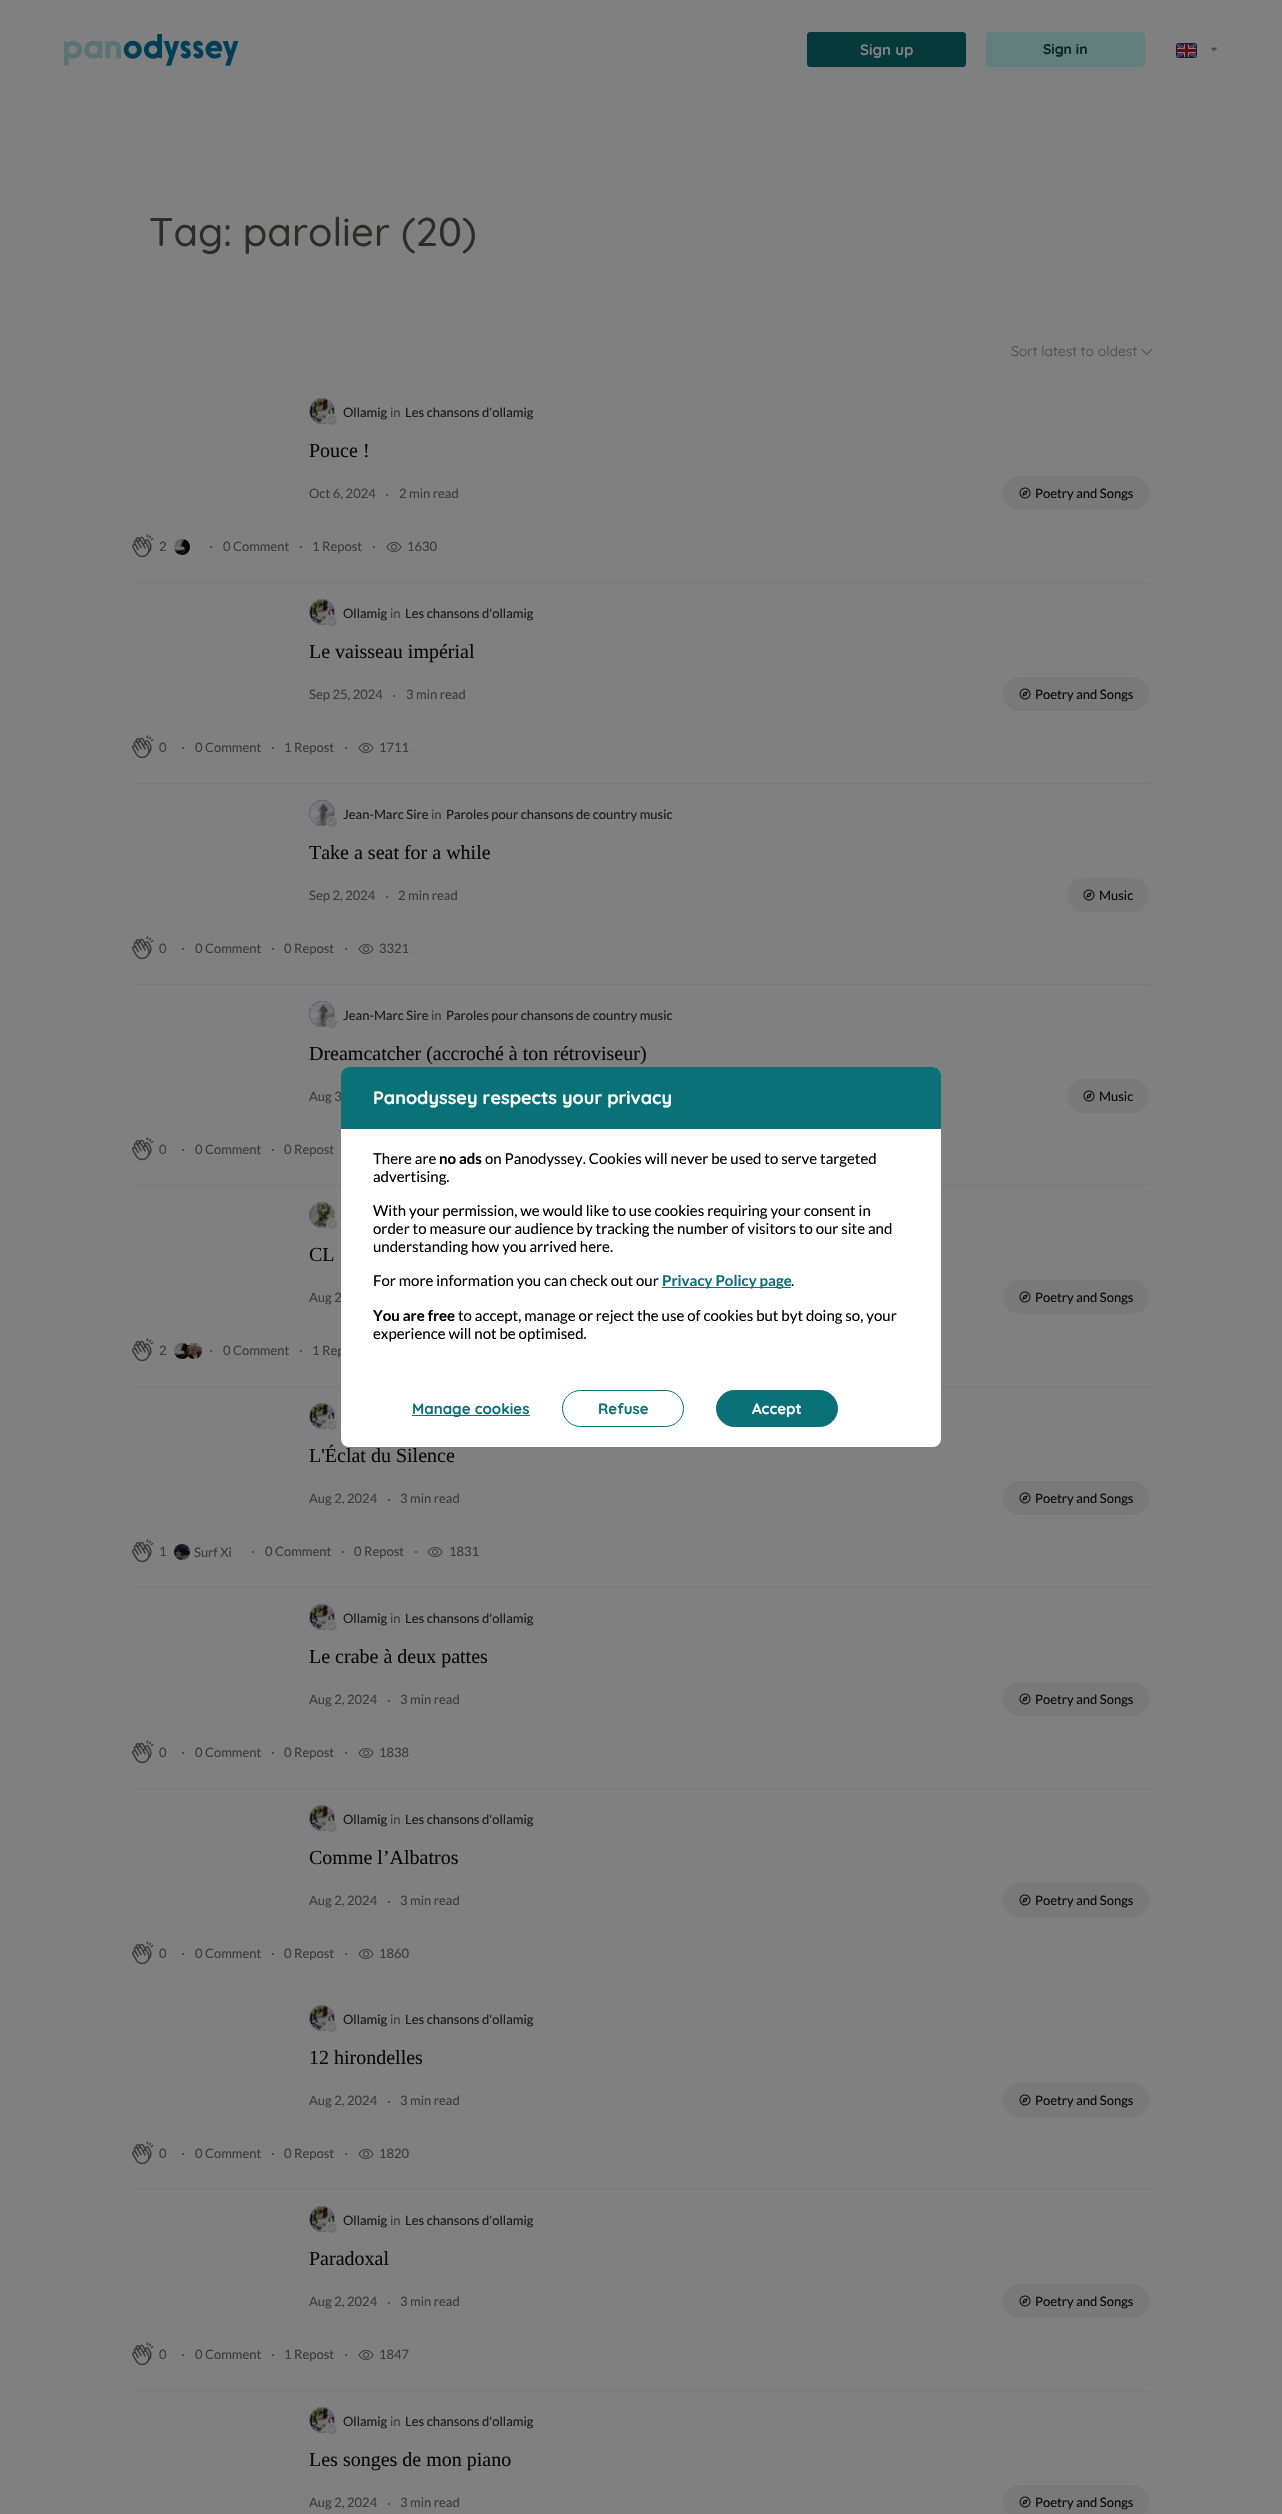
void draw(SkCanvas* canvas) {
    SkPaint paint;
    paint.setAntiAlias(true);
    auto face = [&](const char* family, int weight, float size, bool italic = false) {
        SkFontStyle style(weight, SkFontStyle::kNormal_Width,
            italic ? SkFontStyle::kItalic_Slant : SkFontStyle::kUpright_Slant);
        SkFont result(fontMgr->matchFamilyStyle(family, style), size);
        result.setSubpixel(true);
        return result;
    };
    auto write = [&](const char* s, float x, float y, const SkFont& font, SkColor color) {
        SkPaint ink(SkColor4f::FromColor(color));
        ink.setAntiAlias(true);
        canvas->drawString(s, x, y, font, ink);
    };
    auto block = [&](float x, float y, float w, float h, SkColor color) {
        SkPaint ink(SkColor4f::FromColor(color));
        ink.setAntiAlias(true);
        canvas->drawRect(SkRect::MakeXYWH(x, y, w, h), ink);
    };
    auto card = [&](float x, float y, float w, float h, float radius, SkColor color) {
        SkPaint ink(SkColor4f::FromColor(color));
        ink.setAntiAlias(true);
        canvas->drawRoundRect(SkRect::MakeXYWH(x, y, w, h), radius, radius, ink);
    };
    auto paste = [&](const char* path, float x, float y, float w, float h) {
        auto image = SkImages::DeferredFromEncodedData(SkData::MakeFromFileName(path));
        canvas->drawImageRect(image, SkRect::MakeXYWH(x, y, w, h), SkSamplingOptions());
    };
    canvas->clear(SkColorSetRGB(128, 128, 128));
    paste("pic1.png", 64, 34, 174, 32);
    paint.setColor(SkColorSetRGB(5, 57, 60));
    canvas->drawRoundRect(SkRect::MakeXYWH(807.5f, 32.5f, 158, 34), 2.5f, 2.5f, paint);
    paint.setStyle(SkPaint::kStroke_Style);
    paint.setStrokeWidth(1);
    canvas->drawRoundRect(SkRect::MakeXYWH(807.5f, 32.5f, 158, 34), 2.5f, 2.5f, paint);
    auto kFont1 = face("Quicksand", 700, 15);
    write("Sign up", 860, 55, kFont1, SkColorSetRGB(128, 128, 128));
    paint.setStyle(SkPaint::kFill_Style);
    paint.setColor(SkColorSetRGB(98, 125, 124));
    canvas->drawRoundRect(SkRect::MakeXYWH(986.5f, 32.5f, 158, 34), 2.5f, 2.5f, paint);
    paint.setStyle(SkPaint::kStroke_Style);
    canvas->drawRoundRect(SkRect::MakeXYWH(986.5f, 32.5f, 158, 34), 2.5f, 2.5f, paint);
    auto kFont2 = face("Quicksand", 700, 14);
    write("Sign in", 1043, 54, kFont2, SkColorSetRGB(6, 36, 34));
    paste("pic2.png", 1211, 47, 6, 5);
    paste("pic3.png", 1176, 43, 21, 15);
    auto kFont3 = face("Quicksand", 500, 40);
    write("Tag: parolier (20)", 149, 246, kFont3, SkColorSetRGB(44, 44, 42));
    auto kFont4 = face("Quicksand", 400, 14);
    write("Sort latest to oldest", 1011, 356, kFont4, SkColorSetRGB(76, 76, 76));
    paste("pic4.png", 1141, 349, 11, 7);
    block(131, 582, 1020, 1, SkColorSetRGB(121, 121, 121));
    paint.setColor(SkColorSetRGB(0, 62, 86));
    canvas->drawCircle(322, 411, 12.5f, paint);
    paint.setColor(SkColorSetRGB(112, 112, 112));
    canvas->drawCircle(322, 411, 12.5f, paint);
    paste("pic5.png", 310, 399, 24, 24);
    paint.setStyle(SkPaint::kFill_Style);
    paint.setColor(SkColorSetRGB(128, 128, 128));
    canvas->drawCircle(332, 420, 6, paint);
    paste("pic6.png", 327, 415, 10, 10);
    auto kFont5 = face("Lato", 400, 13);
    write("Ollamig", 343, 417, kFont5, SkColorSetRGB(26, 26, 26));
    write("in", 390, 417, kFont5, SkColorSetRGB(59, 59, 59));
    write("Les chansons d'ollamig", 405, 417, kFont5, SkColorSetRGB(26, 26, 26));
    auto kFont6 = face("Liberation Serif", 400, 20);
    write("Pouce !", 309, 457, kFont6, SkColorSetRGB(9, 9, 9));
    write("Oct 6, 2024", 309, 498, kFont5, SkColorSetRGB(59, 59, 59));
    paint.setColor(SkColorSetRGB(59, 59, 59));
    canvas->drawCircle(387, 495, 1, paint);
    write("2 min read", 399, 498, kFont5, SkColorSetRGB(59, 59, 59));
    card(1003, 476, 146, 34, 17, SkColorSetRGB(121, 121, 121));
    paste("pic7.png", 1019, 487, 12, 12);
    write("Poetry and Songs", 1035, 498, kFont5, SkColorSetRGB(9, 9, 9));
    paste("pic8.png", 132, 534, 22, 24);
    write("2", 159, 551, kFont5, SkColorSetRGB(59, 59, 59));
    paste("pic9.png", 174, 539, 16, 16);
    canvas->drawCircle(211, 547, 1, paint);
    write("0 Comment", 223, 551, kFont5, SkColorSetRGB(59, 59, 59));
    canvas->drawCircle(301, 547, 1, paint);
    write("1 Repost", 312, 551, kFont5, SkColorSetRGB(59, 59, 59));
    canvas->drawCircle(374, 547, 1, paint);
    paste("pic10.png", 386, 542, 16, 10);
    write("1630", 407, 551, kFont5, SkColorSetRGB(59, 59, 59));
    block(131, 783, 1020, 1, SkColorSetRGB(121, 121, 121));
    paint.setStyle(SkPaint::kStroke_Style);
    paint.setColor(SkColorSetRGB(0, 62, 86));
    canvas->drawCircle(322, 612, 12.5f, paint);
    paint.setColor(SkColorSetRGB(112, 112, 112));
    canvas->drawCircle(322, 612, 12.5f, paint);
    paste("pic5.png", 310, 600, 24, 24);
    paint.setStyle(SkPaint::kFill_Style);
    paint.setColor(SkColorSetRGB(128, 128, 128));
    canvas->drawCircle(332, 621, 6, paint);
    paste("pic6.png", 327, 616, 10, 10);
    write("Ollamig", 343, 618, kFont5, SkColorSetRGB(26, 26, 26));
    write("in", 390, 618, kFont5, SkColorSetRGB(59, 59, 59));
    write("Les chansons d'ollamig", 405, 618, kFont5, SkColorSetRGB(26, 26, 26));
    write("Le vaisseau impérial", 309, 658, kFont6, SkColorSetRGB(9, 9, 9));
    write("Sep 25, 2024", 309, 699, kFont5, SkColorSetRGB(59, 59, 59));
    paint.setColor(SkColorSetRGB(59, 59, 59));
    canvas->drawCircle(394, 696, 1, paint);
    write("3 min read", 406, 699, kFont5, SkColorSetRGB(59, 59, 59));
    card(1003, 677, 146, 34, 17, SkColorSetRGB(121, 121, 121));
    paste("pic7.png", 1019, 688, 12, 12);
    write("Poetry and Songs", 1035, 699, kFont5, SkColorSetRGB(9, 9, 9));
    paste("pic8.png", 132, 735, 22, 24);
    write("0", 159, 752, kFont5, SkColorSetRGB(59, 59, 59));
    canvas->drawCircle(183, 748, 1, paint);
    write("0 Comment", 195, 752, kFont5, SkColorSetRGB(59, 59, 59));
    canvas->drawCircle(273, 748, 1, paint);
    write("1 Repost", 284, 752, kFont5, SkColorSetRGB(59, 59, 59));
    canvas->drawCircle(346, 748, 1, paint);
    paste("pic10.png", 358, 743, 16, 10);
    write("1711", 379, 752, kFont5, SkColorSetRGB(59, 59, 59));
    block(131, 984, 1020, 1, SkColorSetRGB(121, 121, 121));
    paint.setStyle(SkPaint::kStroke_Style);
    paint.setColor(SkColorSetRGB(0, 62, 86));
    canvas->drawCircle(322, 813, 12.5f, paint);
    paint.setColor(SkColorSetRGB(112, 112, 112));
    canvas->drawCircle(322, 813, 12.5f, paint);
    paste("pic11.png", 310, 801, 24, 24);
    paint.setStyle(SkPaint::kFill_Style);
    paint.setColor(SkColorSetRGB(128, 128, 128));
    canvas->drawCircle(332, 822, 6, paint);
    paste("pic12.png", 327, 817, 10, 10);
    write("Jean-Marc Sire", 343, 819, kFont5, SkColorSetRGB(26, 26, 26));
    write("in", 431, 819, kFont5, SkColorSetRGB(59, 59, 59));
    write("Paroles pour chansons de country music", 446, 819, kFont5, SkColorSetRGB(26, 26, 26));
    write("Take a seat for a while", 309, 859, kFont6, SkColorSetRGB(9, 9, 9));
    write("Sep 2, 2024", 309, 900, kFont5, SkColorSetRGB(59, 59, 59));
    paint.setColor(SkColorSetRGB(59, 59, 59));
    canvas->drawCircle(387, 897, 1, paint);
    write("2 min read", 398, 900, kFont5, SkColorSetRGB(59, 59, 59));
    card(1067, 878, 82, 34, 17, SkColorSetRGB(121, 121, 121));
    paste("pic7.png", 1083, 889, 12, 12);
    write("Music", 1099, 900, kFont5, SkColorSetRGB(9, 9, 9));
    paste("pic8.png", 132, 936, 22, 24);
    write("0", 159, 953, kFont5, SkColorSetRGB(59, 59, 59));
    canvas->drawCircle(183, 949, 1, paint);
    write("0 Comment", 195, 953, kFont5, SkColorSetRGB(59, 59, 59));
    canvas->drawCircle(273, 949, 1, paint);
    write("0 Repost", 284, 953, kFont5, SkColorSetRGB(59, 59, 59));
    canvas->drawCircle(346, 949, 1, paint);
    paste("pic10.png", 358, 944, 16, 10);
    write("3321", 379, 953, kFont5, SkColorSetRGB(59, 59, 59));
    block(131, 1185, 1020, 1, SkColorSetRGB(121, 121, 121));
    paint.setStyle(SkPaint::kStroke_Style);
    paint.setColor(SkColorSetRGB(0, 62, 86));
    canvas->drawCircle(322, 1014, 12.5f, paint);
    paint.setColor(SkColorSetRGB(112, 112, 112));
    canvas->drawCircle(322, 1014, 12.5f, paint);
    paste("pic13.png", 310, 1002, 24, 24);
    paint.setStyle(SkPaint::kFill_Style);
    paint.setColor(SkColorSetRGB(128, 128, 128));
    canvas->drawCircle(332, 1023, 6, paint);
    paste("pic12.png", 327, 1018, 10, 10);
    write("Jean-Marc Sire", 343, 1020, kFont5, SkColorSetRGB(26, 26, 26));
    write("in", 431, 1020, kFont5, SkColorSetRGB(59, 59, 59));
    write("Paroles pour chansons de country music", 446, 1020, kFont5, SkColorSetRGB(26, 26, 26));
    write("Dreamcatcher (accroché à ton rétroviseur)", 309, 1060, kFont6, SkColorSetRGB(9, 9, 9));
    write("Aug 3", 309, 1101, kFont5, SkColorSetRGB(59, 59, 59));
    card(1067, 1079, 82, 34, 17, SkColorSetRGB(121, 121, 121));
    paste("pic7.png", 1083, 1090, 12, 12);
    write("Music", 1099, 1101, kFont5, SkColorSetRGB(9, 9, 9));
    paste("pic8.png", 132, 1137, 22, 24);
    write("0", 159, 1154, kFont5, SkColorSetRGB(59, 59, 59));
    paint.setColor(SkColorSetRGB(59, 59, 59));
    canvas->drawCircle(183, 1150, 1, paint);
    write("0 Comment", 195, 1154, kFont5, SkColorSetRGB(59, 59, 59));
    canvas->drawCircle(273, 1150, 1, paint);
    write("0 Repost", 284, 1154, kFont5, SkColorSetRGB(59, 59, 59));
    block(131, 1386, 1020, 1, SkColorSetRGB(121, 121, 121));
    paint.setStyle(SkPaint::kStroke_Style);
    paint.setColor(SkColorSetRGB(0, 62, 86));
    canvas->drawCircle(322, 1215, 12.5f, paint);
    paint.setColor(SkColorSetRGB(112, 112, 112));
    canvas->drawCircle(322, 1215, 12.5f, paint);
    paste("pic14.png", 310, 1203, 24, 24);
    paint.setStyle(SkPaint::kFill_Style);
    paint.setColor(SkColorSetRGB(128, 128, 128));
    canvas->drawCircle(332, 1224, 6, paint);
    paste("pic15.png", 327, 1219, 10, 10);
    write("CL", 309, 1261, kFont6, SkColorSetRGB(9, 9, 9));
    write("Aug 2", 309, 1302, kFont5, SkColorSetRGB(59, 59, 59));
    card(1003, 1280, 146, 34, 17, SkColorSetRGB(121, 121, 121));
    paste("pic7.png", 1019, 1291, 12, 12);
    write("Poetry and Songs", 1035, 1302, kFont5, SkColorSetRGB(9, 9, 9));
    paste("pic8.png", 132, 1338, 22, 24);
    write("2", 159, 1355, kFont5, SkColorSetRGB(59, 59, 59));
    paste("pic16.png", 174, 1343, 15, 16);
    paste("pic17.png", 186, 1343, 16, 16);
    paint.setColor(SkColorSetRGB(59, 59, 59));
    canvas->drawCircle(211, 1351, 1, paint);
    write("0 Comment", 223, 1355, kFont5, SkColorSetRGB(59, 59, 59));
    canvas->drawCircle(301, 1351, 1, paint);
    write("1 Rep", 312, 1355, kFont5, SkColorSetRGB(59, 59, 59));
    block(131, 1587, 1020, 1, SkColorSetRGB(121, 121, 121));
    paint.setStyle(SkPaint::kStroke_Style);
    paint.setColor(SkColorSetRGB(0, 62, 86));
    canvas->drawCircle(322, 1416, 12.5f, paint);
    paint.setColor(SkColorSetRGB(112, 112, 112));
    canvas->drawCircle(322, 1416, 12.5f, paint);
    paste("pic5.png", 310, 1404, 24, 24);
    paint.setStyle(SkPaint::kFill_Style);
    paint.setColor(SkColorSetRGB(128, 128, 128));
    canvas->drawCircle(332, 1425, 6, paint);
    paste("pic6.png", 327, 1420, 10, 10);
    write("L'Éclat du Silence", 309, 1462, kFont6, SkColorSetRGB(9, 9, 9));
    write("Aug 2, 2024", 309, 1503, kFont5, SkColorSetRGB(59, 59, 59));
    paint.setColor(SkColorSetRGB(59, 59, 59));
    canvas->drawCircle(389, 1500, 1, paint);
    write("3 min read", 400, 1503, kFont5, SkColorSetRGB(59, 59, 59));
    card(1003, 1481, 146, 34, 17, SkColorSetRGB(121, 121, 121));
    paste("pic7.png", 1019, 1492, 12, 12);
    write("Poetry and Songs", 1035, 1503, kFont5, SkColorSetRGB(9, 9, 9));
    paste("pic8.png", 132, 1539, 22, 24);
    write("1", 159, 1556, kFont5, SkColorSetRGB(59, 59, 59));
    paste("pic18.png", 174, 1544, 16, 16);
    write("Surf Xi", 194, 1557, kFont5, SkColorSetRGB(59, 59, 59));
    canvas->drawCircle(253, 1552, 1, paint);
    write("0 Comment", 265, 1556, kFont5, SkColorSetRGB(59, 59, 59));
    canvas->drawCircle(343, 1552, 1, paint);
    write("0 Repost", 354, 1556, kFont5, SkColorSetRGB(59, 59, 59));
    canvas->drawCircle(416, 1552, 1, paint);
    paste("pic10.png", 427, 1547, 16, 10);
    write("1831", 449, 1556, kFont5, SkColorSetRGB(59, 59, 59));
    block(131, 1788, 1020, 1, SkColorSetRGB(121, 121, 121));
    paint.setStyle(SkPaint::kStroke_Style);
    paint.setColor(SkColorSetRGB(0, 62, 86));
    canvas->drawCircle(322, 1617, 12.5f, paint);
    paint.setColor(SkColorSetRGB(112, 112, 112));
    canvas->drawCircle(322, 1617, 12.5f, paint);
    paste("pic5.png", 310, 1605, 24, 24);
    paint.setStyle(SkPaint::kFill_Style);
    paint.setColor(SkColorSetRGB(128, 128, 128));
    canvas->drawCircle(332, 1626, 6, paint);
    paste("pic6.png", 327, 1621, 10, 10);
    write("Ollamig", 343, 1623, kFont5, SkColorSetRGB(26, 26, 26));
    write("in", 390, 1623, kFont5, SkColorSetRGB(59, 59, 59));
    write("Les chansons d'ollamig", 405, 1623, kFont5, SkColorSetRGB(26, 26, 26));
    write("Le crabe à deux pattes", 309, 1663, kFont6, SkColorSetRGB(9, 9, 9));
    write("Aug 2, 2024", 309, 1704, kFont5, SkColorSetRGB(59, 59, 59));
    paint.setColor(SkColorSetRGB(59, 59, 59));
    canvas->drawCircle(389, 1701, 1, paint);
    write("3 min read", 400, 1704, kFont5, SkColorSetRGB(59, 59, 59));
    card(1003, 1682, 146, 34, 17, SkColorSetRGB(121, 121, 121));
    paste("pic7.png", 1019, 1693, 12, 12);
    write("Poetry and Songs", 1035, 1704, kFont5, SkColorSetRGB(9, 9, 9));
    paste("pic8.png", 132, 1740, 22, 24);
    write("0", 159, 1757, kFont5, SkColorSetRGB(59, 59, 59));
    canvas->drawCircle(183, 1753, 1, paint);
    write("0 Comment", 195, 1757, kFont5, SkColorSetRGB(59, 59, 59));
    canvas->drawCircle(273, 1753, 1, paint);
    write("0 Repost", 284, 1757, kFont5, SkColorSetRGB(59, 59, 59));
    canvas->drawCircle(346, 1753, 1, paint);
    paste("pic10.png", 358, 1748, 16, 10);
    write("1838", 379, 1757, kFont5, SkColorSetRGB(59, 59, 59));
    paint.setStyle(SkPaint::kStroke_Style);
    paint.setColor(SkColorSetRGB(0, 62, 86));
    canvas->drawCircle(322, 1818, 12.5f, paint);
    paint.setColor(SkColorSetRGB(112, 112, 112));
    canvas->drawCircle(322, 1818, 12.5f, paint);
    paste("pic5.png", 310, 1806, 24, 24);
    paint.setStyle(SkPaint::kFill_Style);
    paint.setColor(SkColorSetRGB(128, 128, 128));
    canvas->drawCircle(332, 1827, 6, paint);
    paste("pic6.png", 327, 1822, 10, 10);
    write("Ollamig", 343, 1824, kFont5, SkColorSetRGB(26, 26, 26));
    write("in", 390, 1824, kFont5, SkColorSetRGB(59, 59, 59));
    write("Les chansons d'ollamig", 405, 1824, kFont5, SkColorSetRGB(26, 26, 26));
    write("Comme l’Albatros", 309, 1864, kFont6, SkColorSetRGB(9, 9, 9));
    write("Aug 2, 2024", 309, 1905, kFont5, SkColorSetRGB(59, 59, 59));
    paint.setColor(SkColorSetRGB(59, 59, 59));
    canvas->drawCircle(389, 1902, 1, paint);
    write("3 min read", 400, 1905, kFont5, SkColorSetRGB(59, 59, 59));
    card(1003, 1883, 146, 34, 17, SkColorSetRGB(121, 121, 121));
    paste("pic7.png", 1019, 1894, 12, 12);
    write("Poetry and Songs", 1035, 1905, kFont5, SkColorSetRGB(9, 9, 9));
    paste("pic8.png", 132, 1941, 22, 24);
    write("0", 159, 1958, kFont5, SkColorSetRGB(59, 59, 59));
    canvas->drawCircle(183, 1954, 1, paint);
    write("0 Comment", 195, 1958, kFont5, SkColorSetRGB(59, 59, 59));
    canvas->drawCircle(273, 1954, 1, paint);
    write("0 Repost", 284, 1958, kFont5, SkColorSetRGB(59, 59, 59));
    canvas->drawCircle(346, 1954, 1, paint);
    paste("pic10.png", 358, 1949, 16, 10);
    write("1860", 379, 1958, kFont5, SkColorSetRGB(59, 59, 59));
    block(131, 2189, 1020, 1, SkColorSetRGB(121, 121, 121));
    paint.setStyle(SkPaint::kStroke_Style);
    paint.setColor(SkColorSetRGB(0, 62, 86));
    canvas->drawCircle(322, 2018, 12.5f, paint);
    paint.setColor(SkColorSetRGB(112, 112, 112));
    canvas->drawCircle(322, 2018, 12.5f, paint);
    paste("pic5.png", 310, 2006, 24, 24);
    paint.setStyle(SkPaint::kFill_Style);
    paint.setColor(SkColorSetRGB(128, 128, 128));
    canvas->drawCircle(332, 2027, 6, paint);
    paste("pic6.png", 327, 2022, 10, 10);
    write("Ollamig", 343, 2024, kFont5, SkColorSetRGB(26, 26, 26));
    write("in", 390, 2024, kFont5, SkColorSetRGB(59, 59, 59));
    write("Les chansons d'ollamig", 405, 2024, kFont5, SkColorSetRGB(26, 26, 26));
    write("12 hirondelles", 309, 2064, kFont6, SkColorSetRGB(9, 9, 9));
    write("Aug 2, 2024", 309, 2105, kFont5, SkColorSetRGB(59, 59, 59));
    paint.setColor(SkColorSetRGB(59, 59, 59));
    canvas->drawCircle(389, 2102, 1, paint);
    write("3 min read", 400, 2105, kFont5, SkColorSetRGB(59, 59, 59));
    card(1003, 2083, 146, 34, 17, SkColorSetRGB(121, 121, 121));
    paste("pic7.png", 1019, 2094, 12, 12);
    write("Poetry and Songs", 1035, 2105, kFont5, SkColorSetRGB(9, 9, 9));
    paste("pic8.png", 132, 2141, 22, 24);
    write("0", 159, 2158, kFont5, SkColorSetRGB(59, 59, 59));
    canvas->drawCircle(183, 2154, 1, paint);
    write("0 Comment", 195, 2158, kFont5, SkColorSetRGB(59, 59, 59));
    canvas->drawCircle(273, 2154, 1, paint);
    write("0 Repost", 284, 2158, kFont5, SkColorSetRGB(59, 59, 59));
    canvas->drawCircle(346, 2154, 1, paint);
    paste("pic10.png", 358, 2149, 16, 10);
    write("1820", 379, 2158, kFont5, SkColorSetRGB(59, 59, 59));
    block(131, 2390, 1020, 1, SkColorSetRGB(121, 121, 121));
    paint.setStyle(SkPaint::kStroke_Style);
    paint.setColor(SkColorSetRGB(0, 62, 86));
    canvas->drawCircle(322, 2219, 12.5f, paint);
    paint.setColor(SkColorSetRGB(112, 112, 112));
    canvas->drawCircle(322, 2219, 12.5f, paint);
    paste("pic5.png", 310, 2207, 24, 24);
    paint.setStyle(SkPaint::kFill_Style);
    paint.setColor(SkColorSetRGB(128, 128, 128));
    canvas->drawCircle(332, 2228, 6, paint);
    paste("pic6.png", 327, 2223, 10, 10);
    write("Ollamig", 343, 2225, kFont5, SkColorSetRGB(26, 26, 26));
    write("in", 390, 2225, kFont5, SkColorSetRGB(59, 59, 59));
    write("Les chansons d'ollamig", 405, 2225, kFont5, SkColorSetRGB(26, 26, 26));
    write("Paradoxal", 309, 2265, kFont6, SkColorSetRGB(9, 9, 9));
    write("Aug 2, 2024", 309, 2306, kFont5, SkColorSetRGB(59, 59, 59));
    paint.setColor(SkColorSetRGB(59, 59, 59));
    canvas->drawCircle(389, 2303, 1, paint);
    write("3 min read", 400, 2306, kFont5, SkColorSetRGB(59, 59, 59));
    card(1003, 2284, 146, 34, 17, SkColorSetRGB(121, 121, 121));
    paste("pic7.png", 1019, 2295, 12, 12);
    write("Poetry and Songs", 1035, 2306, kFont5, SkColorSetRGB(9, 9, 9));
    paste("pic8.png", 132, 2342, 22, 24);
    write("0", 159, 2359, kFont5, SkColorSetRGB(59, 59, 59));
    canvas->drawCircle(183, 2355, 1, paint);
    write("0 Comment", 195, 2359, kFont5, SkColorSetRGB(59, 59, 59));
    canvas->drawCircle(273, 2355, 1, paint);
    write("1 Repost", 284, 2359, kFont5, SkColorSetRGB(59, 59, 59));
    canvas->drawCircle(346, 2355, 1, paint);
    paste("pic10.png", 358, 2350, 16, 10);
    write("1847", 379, 2359, kFont5, SkColorSetRGB(59, 59, 59));
    paint.setStyle(SkPaint::kStroke_Style);
    paint.setColor(SkColorSetRGB(0, 62, 86));
    canvas->drawCircle(322, 2420, 12.5f, paint);
    paint.setColor(SkColorSetRGB(112, 112, 112));
    canvas->drawCircle(322, 2420, 12.5f, paint);
    paste("pic5.png", 310, 2408, 24, 24);
    paint.setStyle(SkPaint::kFill_Style);
    paint.setColor(SkColorSetRGB(128, 128, 128));
    canvas->drawCircle(332, 2429, 6, paint);
    paste("pic6.png", 327, 2424, 10, 10);
    write("Ollamig", 343, 2426, kFont5, SkColorSetRGB(26, 26, 26));
    write("in", 390, 2426, kFont5, SkColorSetRGB(59, 59, 59));
    write("Les chansons d'ollamig", 405, 2426, kFont5, SkColorSetRGB(26, 26, 26));
    write("Les songes de mon piano", 309, 2466, kFont6, SkColorSetRGB(9, 9, 9));
    write("Aug 2, 2024", 309, 2507, kFont5, SkColorSetRGB(59, 59, 59));
    paint.setColor(SkColorSetRGB(59, 59, 59));
    canvas->drawCircle(389, 2504, 1, paint);
    write("3 min read", 400, 2507, kFont5, SkColorSetRGB(59, 59, 59));
    card(1003, 2485, 146, 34, 17, SkColorSetRGB(121, 121, 121));
    paste("pic7.png", 1019, 2496, 12, 12);
    write("Poetry and Songs", 1035, 2507, kFont5, SkColorSetRGB(9, 9, 9));
    card(341, 1067, 600, 380, 8, SK_ColorWHITE);
    paint.setColor(SkColorSetRGB(10, 113, 119));
    canvas->drawPath(SkPathBuilder().moveTo(349, 1067).lineTo(933, 1067).cubicTo(937.5f, 1067, 941, 1070.5f, 941, 1075).lineTo(941, 1129).lineTo(341, 1129).lineTo(341, 1075).cubicTo(341, 1070.5f, 344.5f, 1067, 349, 1067).close().detach(), paint);
    auto kFont7 = face("Quicksand", 700, 18);
    write("Panodyssey respects your privacy", 373, 1104, kFont7, SK_ColorWHITE);
    auto kFont8 = face("Lato", 400, 15);
    write("There are", 373, 1164, kFont8, SK_ColorBLACK);
    auto kFont9 = face("Lato", 700, 15);
    write("no ads", 439, 1164, kFont9, SK_ColorBLACK);
    write("on Panodyssey. Cookies will never be used to serve targeted", 485, 1164, kFont8, SK_ColorBLACK);
    write("advertising.", 373, 1182, kFont8, SK_ColorBLACK);
    write("With your permission, we would like to use cookies requiring your consent in", 373, 1216, kFont8, SK_ColorBLACK);
    write("order to measure our audience by tracking the number of visitors to our site and", 373, 1234, kFont8, SK_ColorBLACK);
    write("understanding how you arrived here.", 373, 1252, kFont8, SK_ColorBLACK);
    write("For more information you can check out our", 373, 1286, kFont8, SK_ColorBLACK);
    block(662, 1287, 129, 1, SkColorSetRGB(10, 113, 119));
    write("Privacy Policy page", 662, 1286, kFont9, SkColorSetRGB(10, 113, 119));
    write(".", 791, 1286, kFont8, SK_ColorBLACK);
    write("You are free", 373, 1321, kFont9, SK_ColorBLACK);
    write("to accept, manage or reject the use of cookies but byt doing so, your", 458, 1321, kFont8, SK_ColorBLACK);
    write("experience will not be optimised.", 373, 1339, kFont8, SK_ColorBLACK);
    block(412, 1415, 118, 1, SkColorSetRGB(10, 113, 119));
    write("Manage cookies", 412, 1414, kFont1, SkColorSetRGB(10, 113, 119));
    paint.setStyle(SkPaint::kStroke_Style);
    canvas->drawRoundRect(SkRect::MakeXYWH(562.5f, 1390.5f, 121, 36), 18, 18, paint);
    write("Refuse", 598, 1414, kFont1, SkColorSetRGB(10, 113, 119));
    paint.setStyle(SkPaint::kFill_Style);
    canvas->drawRoundRect(SkRect::MakeXYWH(716.5f, 1390.5f, 121, 36), 18, 18, paint);
    paint.setStyle(SkPaint::kStroke_Style);
    canvas->drawRoundRect(SkRect::MakeXYWH(716.5f, 1390.5f, 121, 36), 18, 18, paint);
    write("Accept", 752, 1414, kFont1, SK_ColorWHITE);
}
